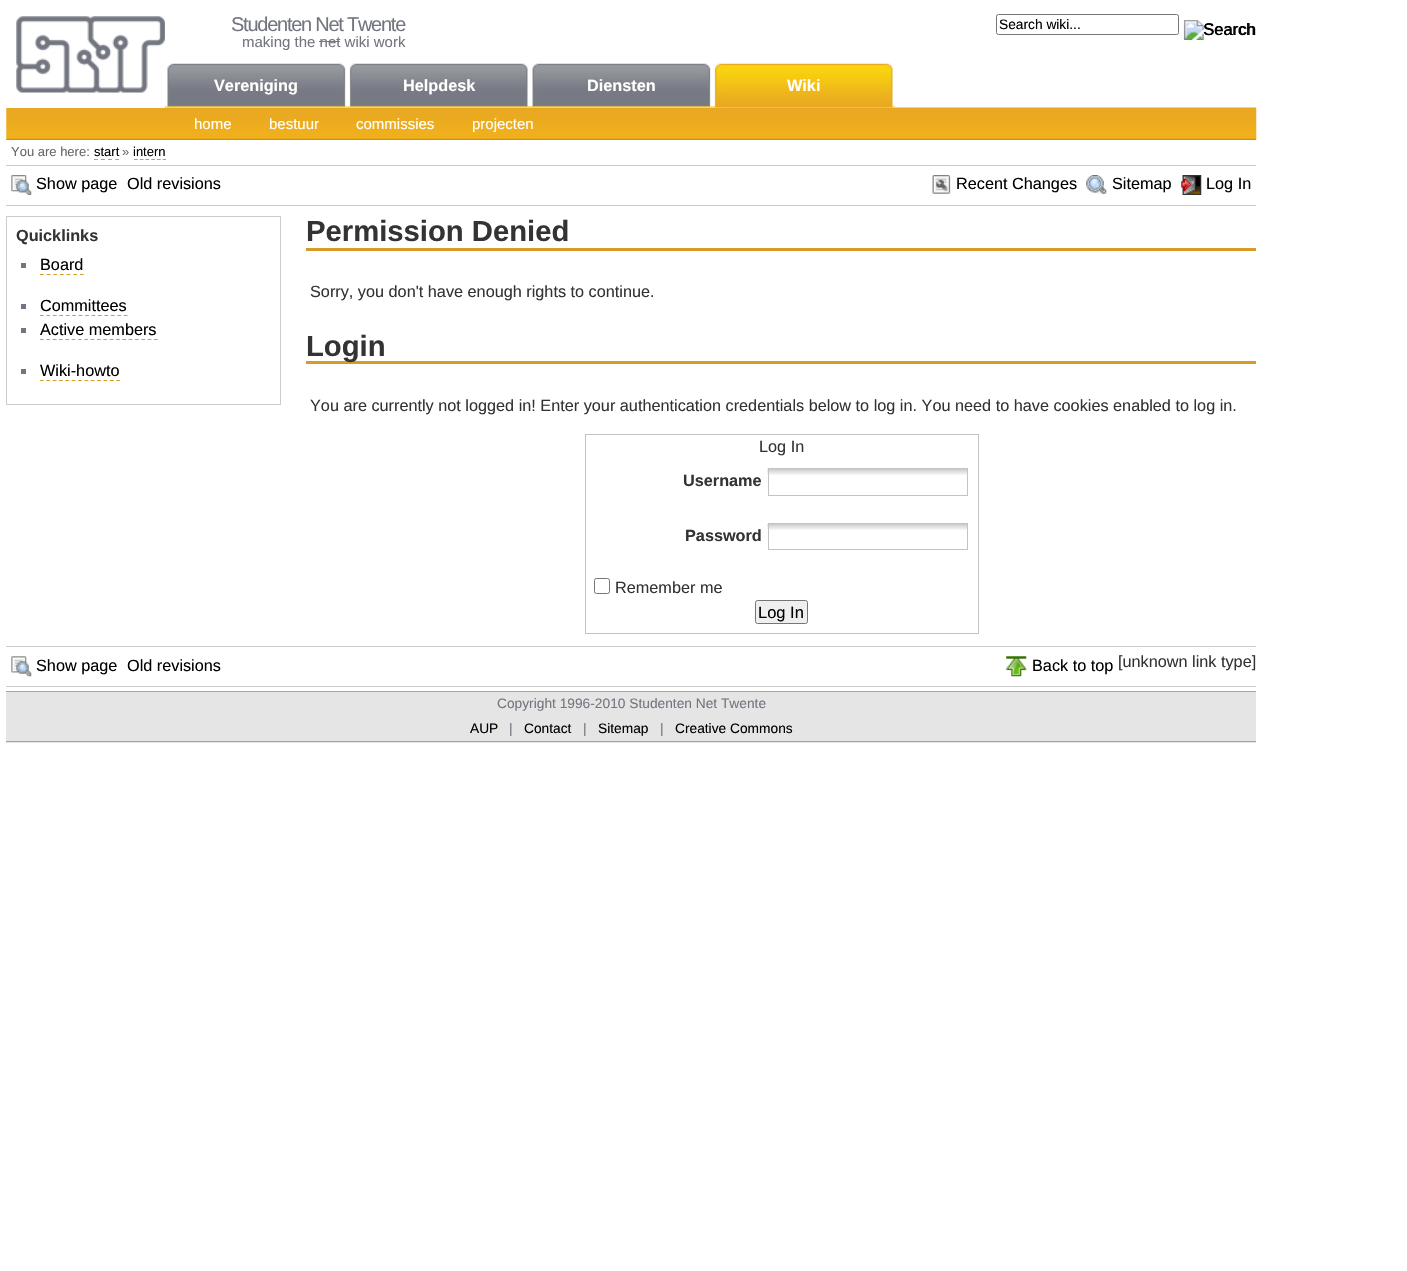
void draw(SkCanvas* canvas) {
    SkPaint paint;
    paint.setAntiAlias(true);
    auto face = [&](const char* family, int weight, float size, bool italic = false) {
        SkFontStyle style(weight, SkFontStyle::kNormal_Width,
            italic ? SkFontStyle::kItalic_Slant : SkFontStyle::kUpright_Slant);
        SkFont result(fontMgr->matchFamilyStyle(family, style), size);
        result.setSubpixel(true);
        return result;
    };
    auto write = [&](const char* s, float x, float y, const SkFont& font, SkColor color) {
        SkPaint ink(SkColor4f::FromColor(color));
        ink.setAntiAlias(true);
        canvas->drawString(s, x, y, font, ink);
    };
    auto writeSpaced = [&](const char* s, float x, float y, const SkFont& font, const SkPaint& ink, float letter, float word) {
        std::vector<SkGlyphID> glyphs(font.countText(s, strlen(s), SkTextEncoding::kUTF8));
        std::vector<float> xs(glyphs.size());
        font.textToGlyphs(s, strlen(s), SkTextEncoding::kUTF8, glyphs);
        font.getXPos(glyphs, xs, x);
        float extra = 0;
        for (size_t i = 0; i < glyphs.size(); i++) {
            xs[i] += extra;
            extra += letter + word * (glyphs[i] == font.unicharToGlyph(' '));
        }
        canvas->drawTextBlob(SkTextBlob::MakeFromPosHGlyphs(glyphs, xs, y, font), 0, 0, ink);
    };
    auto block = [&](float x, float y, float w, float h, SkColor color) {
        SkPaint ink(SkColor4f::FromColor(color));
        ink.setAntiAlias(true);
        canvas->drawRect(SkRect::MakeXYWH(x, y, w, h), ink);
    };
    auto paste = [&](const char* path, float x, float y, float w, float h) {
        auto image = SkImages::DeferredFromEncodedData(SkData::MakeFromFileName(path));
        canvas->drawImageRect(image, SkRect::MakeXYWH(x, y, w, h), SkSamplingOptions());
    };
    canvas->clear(SK_ColorWHITE);
    paste("pic7.png", 6, 107, 1251, 33);
    block(6, 107, 159, 1, SK_ColorWHITE);
    paste("pic1.png", 16, 16, 149, 77);
    auto kFont1 = face("Liberation Sans", 400, 20);
    paint.setColor(SkColorSetRGB(115, 118, 128));
    writeSpaced("Studenten Net Twente", 231, 31, kFont1, paint, -1.25f, 0);
    auto kFont2 = face("Liberation Sans", 400, 15);
    write("making the net wiki work", 242, 47, kFont2, SkColorSetRGB(115, 118, 128));
    block(319, 41, 21, 1, SkColorSetRGB(115, 118, 128));
    paint.setStyle(SkPaint::kStroke_Style);
    paint.setStrokeWidth(1);
    paint.setColor(SkColorSetRGB(118, 118, 118));
    canvas->drawRoundRect(SkRect::MakeXYWH(996.5f, 14.5f, 182, 20), 2, 2, paint);
    auto kFont3 = face("Liberation Sans", 400, 13.75f);
    write("Search wiki...", 999, 29, kFont3, SK_ColorBLACK);
    paste("pic2.png", 1183, 20, 73, 20);
    auto kFont4 = face("Liberation Sans", 400, 16.5f);
    write("Search", 1203, 35, kFont4, SK_ColorBLACK);
    paste("pic3.png", 165, 63, 183, 45);
    auto kFont5 = face("Liberation Sans", 700, 16.25f);
    write("Vereniging", 214, 91, kFont5, SK_ColorWHITE);
    paste("pic4.png", 347, 63, 183, 45);
    write("Helpdesk", 403, 91, kFont5, SK_ColorWHITE);
    paste("pic5.png", 530, 63, 183, 45);
    write("Diensten", 587, 91, kFont5, SK_ColorWHITE);
    paste("pic6.png", 712, 63, 183, 45);
    write("Wiki", 787, 91, kFont5, SK_ColorWHITE);
    write("home", 194, 129, kFont2, SK_ColorWHITE);
    write("bestuur", 269, 129, kFont2, SK_ColorWHITE);
    write("commissies", 356, 129, kFont2, SK_ColorWHITE);
    write("projecten", 472, 129, kFont2, SK_ColorWHITE);
    auto kFont6 = face("Liberation Sans", 400, 13);
    write("You are here:", 11, 156, kFont6, SkColorSetRGB(102, 102, 102));
    write("start", 94, 156, kFont6, SK_ColorBLACK);
    paint.setStrokeWidth(1.2f);
    paint.setColor(SkColorSetRGB(214, 156, 37));
    paint.setPathEffect(SkDashPathEffect::Make({{3.75f, 3.34f}}, 0));
    canvas->drawPath(SkPathBuilder().moveTo(94, 159.5f).lineTo(119, 159.5f).detach(), paint);
    paint.setPathEffect(nullptr);
    write("»", 122, 156, kFont6, SkColorSetRGB(102, 102, 102));
    write("intern", 133, 156, kFont6, SK_ColorBLACK);
    paint.setPathEffect(SkDashPathEffect::Make({{3.75f, 2}}, 0));
    canvas->drawPath(SkPathBuilder().moveTo(134, 159.5f).lineTo(166, 159.5f).detach(), paint);
    paint.setPathEffect(nullptr);
    block(6, 165, 1250, 1, SkColorSetRGB(204, 204, 204));
    block(6, 205, 1250, 1, SkColorSetRGB(204, 204, 204));
    paste("pic8.png", 11, 175, 21, 20);
    auto kFont7 = face("Liberation Sans", 400, 16.25f);
    write("Show page", 36, 189, kFont7, SK_ColorBLACK);
    write("Old revisions", 127, 189, kFont7, SK_ColorBLACK);
    paste("pic9.png", 932, 175, 19, 19);
    write("Recent Changes", 956, 189, kFont7, SK_ColorBLACK);
    paste("pic10.png", 1086, 175, 21, 19);
    write("Sitemap", 1112, 189, kFont7, SK_ColorBLACK);
    paste("pic11.png", 1181, 175, 21, 20);
    write("Log In", 1206, 189, kFont7, SK_ColorBLACK);
    paint.setStrokeWidth(1);
    paint.setColor(SkColorSetRGB(204, 204, 204));
    canvas->drawRect(SkRect::MakeXYWH(6.5f, 216.5f, 274, 188), paint);
    write("Quicklinks", 16, 241, kFont5, SkColorSetRGB(51, 51, 51));
    block(21, 263, 5, 5, SkColorSetRGB(115, 118, 128));
    write("Board", 40, 270, kFont7, SK_ColorBLACK);
    paint.setStrokeWidth(1.2f);
    paint.setColor(SkColorSetRGB(214, 156, 37));
    paint.setPathEffect(SkDashPathEffect::Make({{3.75f, 2.91f}}, 0));
    canvas->drawPath(SkPathBuilder().moveTo(40, 274.5f).lineTo(84, 274.5f).detach(), paint);
    paint.setPathEffect(nullptr);
    block(21, 304, 5, 5, SkColorSetRGB(115, 118, 128));
    write("Committees", 40, 311, kFont7, SK_ColorBLACK);
    paint.setPathEffect(SkDashPathEffect::Make({{3.75f, 2.69f}}, 0));
    canvas->drawPath(SkPathBuilder().moveTo(40, 315.5f).lineTo(127.5f, 315.5f).detach(), paint);
    paint.setPathEffect(nullptr);
    block(21, 328, 5, 5, SkColorSetRGB(115, 118, 128));
    write("Active members", 40, 335, kFont7, SK_ColorBLACK);
    paint.setPathEffect(SkDashPathEffect::Make({{3.75f, 2.58f}}, 0));
    canvas->drawPath(SkPathBuilder().moveTo(40, 339.5f).lineTo(157.5f, 339.5f).detach(), paint);
    paint.setPathEffect(nullptr);
    block(21, 369, 5, 5, SkColorSetRGB(115, 118, 128));
    write("Wiki-howto", 40, 376, kFont7, SK_ColorBLACK);
    paint.setPathEffect(SkDashPathEffect::Make({{3.75f, 2.6f}}, 0));
    canvas->drawPath(SkPathBuilder().moveTo(40, 380.5f).lineTo(120, 380.5f).detach(), paint);
    paint.setPathEffect(nullptr);
    block(306, 248, 950, 3, SkColorSetRGB(214, 156, 37));
    auto kFont8 = face("Liberation Sans", 700, 29.25f);
    write("Permission Denied", 306, 241, kFont8, SkColorSetRGB(51, 51, 51));
    write("Sorry, you don't have enough rights to continue.", 310, 297, kFont7, SkColorSetRGB(51, 51, 51));
    block(306, 361, 950, 3, SkColorSetRGB(214, 156, 37));
    write("Login", 306, 356, kFont8, SkColorSetRGB(51, 51, 51));
    write("You are currently not logged in! Enter your authentication credentials below to log in. You need to have cookies enabled to log in.", 310, 411, kFont7, SkColorSetRGB(51, 51, 51));
    paint.setStrokeWidth(1);
    paint.setColor(SkColorSetRGB(195, 195, 195));
    canvas->drawRect(SkRect::MakeXYWH(585.5f, 434.5f, 393, 199), paint);
    write("Log In", 759, 452, kFont7, SkColorSetRGB(51, 51, 51));
    write("Username", 683, 486, kFont5, SkColorSetRGB(51, 51, 51));
    paste("pic12.png", 767, 468, 200, 7);
    canvas->drawRect(SkRect::MakeXYWH(768.5f, 468.5f, 199, 27), paint);
    write("Password", 685, 541, kFont5, SkColorSetRGB(51, 51, 51));
    paste("pic12.png", 767, 523, 200, 7);
    canvas->drawRect(SkRect::MakeXYWH(768.5f, 523.5f, 199, 26), paint);
    paint.setColor(SkColorSetRGB(118, 118, 118));
    canvas->drawRoundRect(SkRect::MakeXYWH(594.5f, 578.5f, 15, 15), 2, 2, paint);
    write("Remember me", 615, 593, kFont7, SkColorSetRGB(51, 51, 51));
    paint.setStyle(SkPaint::kFill_Style);
    paint.setColor(SkColorSetRGB(239, 239, 239));
    canvas->drawRoundRect(SkRect::MakeXYWH(755.5f, 600.5f, 52, 23), 2, 2, paint);
    paint.setStyle(SkPaint::kStroke_Style);
    paint.setColor(SkColorSetRGB(118, 118, 118));
    canvas->drawRoundRect(SkRect::MakeXYWH(755.5f, 600.5f, 52, 23), 2, 2, paint);
    write("Log In", 758, 618, kFont4, SK_ColorBLACK);
    block(6, 646, 1250, 1, SkColorSetRGB(204, 204, 204));
    block(6, 686, 1250, 1, SkColorSetRGB(204, 204, 204));
    paste("pic13.png", 11, 656, 21, 21);
    write("Show page", 36, 671, kFont7, SK_ColorBLACK);
    write("Old revisions", 127, 671, kFont7, SK_ColorBLACK);
    paste("pic14.png", 1006, 656, 21, 21);
    write("Back to top", 1032, 671, kFont7, SK_ColorBLACK);
    write("[unknown link type]", 1118, 667, kFont7, SkColorSetRGB(51, 51, 51));
    block(6, 692, 1250, 51, SkColorSetRGB(229, 229, 229));
    block(6, 691, 1250, 1, SkColorSetRGB(164, 164, 164));
    block(6, 741, 1250, 1, SkColorSetRGB(164, 164, 164));
    write("Copyright 1996-2010 Studenten Net Twente", 497, 708, kFont3, SkColorSetRGB(115, 118, 128));
    write("AUP", 470, 733, kFont3, SK_ColorBLACK);
    write("|", 509, 733, kFont3, SkColorSetRGB(115, 118, 128));
    write("Contact", 524, 733, kFont3, SK_ColorBLACK);
    write("|", 583, 733, kFont3, SkColorSetRGB(115, 118, 128));
    write("Sitemap", 598, 733, kFont3, SK_ColorBLACK);
    write("|", 660, 733, kFont3, SkColorSetRGB(115, 118, 128));
    write("Creative Commons", 675, 733, kFont3, SK_ColorBLACK);
}
